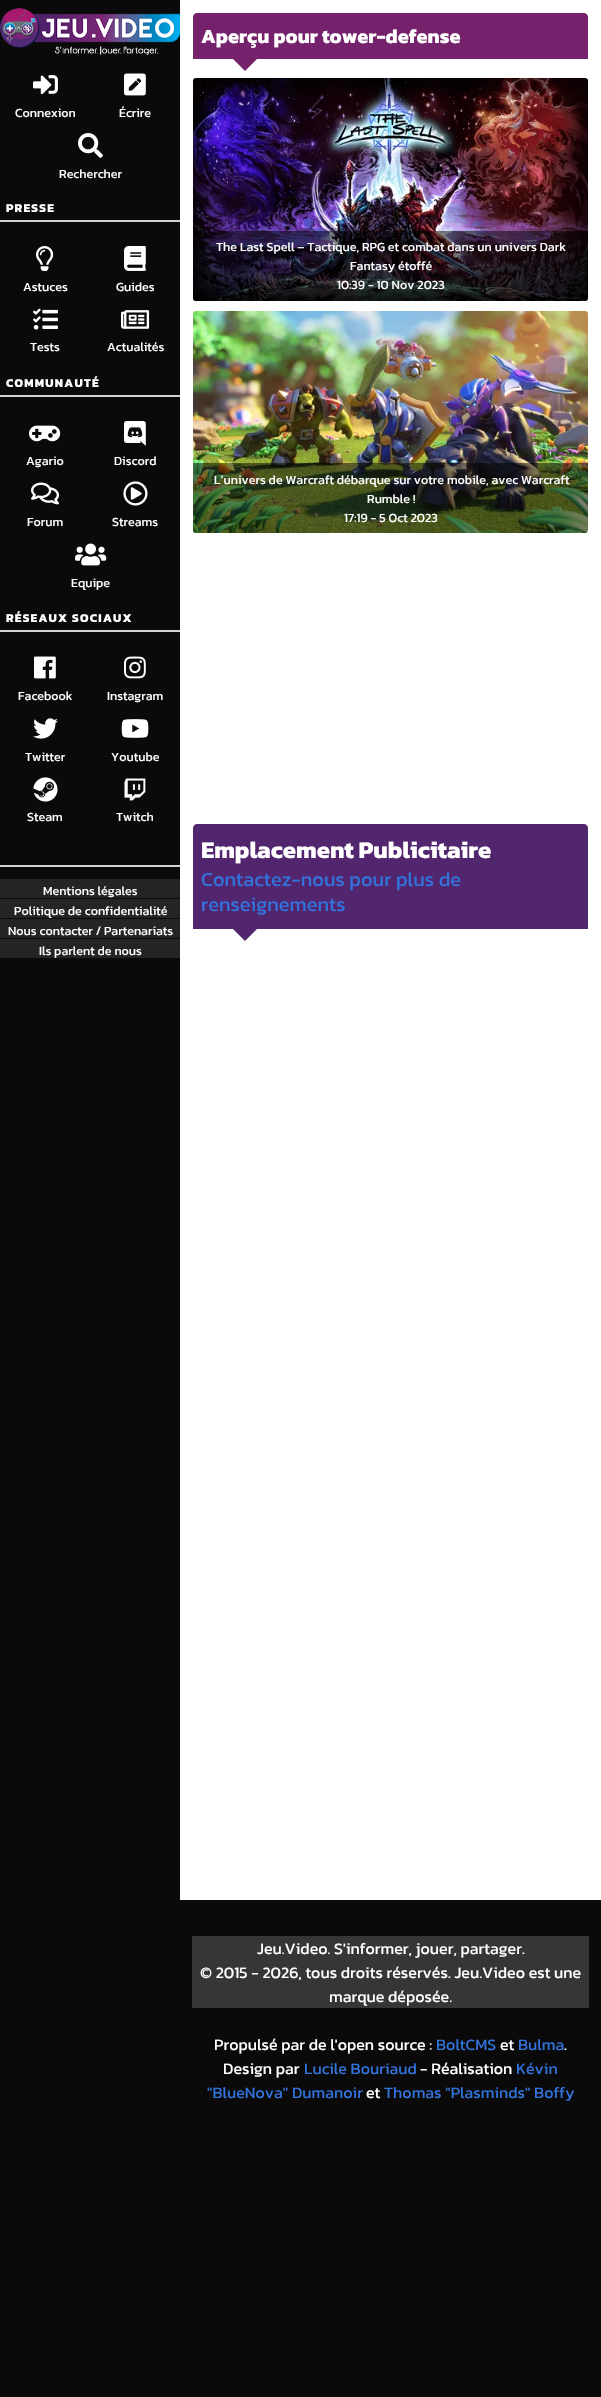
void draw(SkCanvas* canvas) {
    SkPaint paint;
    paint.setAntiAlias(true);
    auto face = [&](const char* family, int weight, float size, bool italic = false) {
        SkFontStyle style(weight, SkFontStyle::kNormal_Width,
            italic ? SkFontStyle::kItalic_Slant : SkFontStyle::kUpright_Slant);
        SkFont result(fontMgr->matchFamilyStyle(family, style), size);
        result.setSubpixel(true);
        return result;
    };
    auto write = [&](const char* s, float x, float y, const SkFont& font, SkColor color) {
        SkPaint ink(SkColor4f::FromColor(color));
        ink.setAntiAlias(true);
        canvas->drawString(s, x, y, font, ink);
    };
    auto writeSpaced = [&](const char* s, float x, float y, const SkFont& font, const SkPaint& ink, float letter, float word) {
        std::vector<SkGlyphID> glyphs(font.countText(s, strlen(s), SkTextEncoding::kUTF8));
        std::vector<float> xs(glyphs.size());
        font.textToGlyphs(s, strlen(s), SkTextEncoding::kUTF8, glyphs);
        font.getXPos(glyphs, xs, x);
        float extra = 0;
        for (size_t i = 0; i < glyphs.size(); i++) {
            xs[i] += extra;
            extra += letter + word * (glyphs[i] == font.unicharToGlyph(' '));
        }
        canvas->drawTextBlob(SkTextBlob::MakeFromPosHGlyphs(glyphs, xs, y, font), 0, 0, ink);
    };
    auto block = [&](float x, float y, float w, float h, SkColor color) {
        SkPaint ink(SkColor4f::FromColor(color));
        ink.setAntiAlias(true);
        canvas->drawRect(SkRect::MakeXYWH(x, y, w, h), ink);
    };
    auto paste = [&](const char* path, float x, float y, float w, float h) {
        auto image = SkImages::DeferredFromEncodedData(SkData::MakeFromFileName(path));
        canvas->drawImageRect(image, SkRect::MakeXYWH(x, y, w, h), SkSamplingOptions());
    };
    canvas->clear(SK_ColorWHITE);
    block(0, 0, 180, 2397, SkColorSetRGB(10, 10, 10));
    paste("pic1.png", 0, 8, 180, 47);
    paste("pic2.png", 33, 75, 25, 20);
    auto kFont1 = face("Kanit", 400, 12.5f);
    write("Connexion", 15, 117, kFont1, SK_ColorWHITE);
    paste("pic3.png", 124, 73, 22, 23);
    write("Écrire", 119, 117, kFont1, SK_ColorWHITE);
    paste("pic4.png", 78, 133, 25, 25);
    write("Rechercher", 59, 178, kFont1, SK_ColorWHITE);
    block(0, 220, 180, 2, SkColorSetRGB(211, 211, 211));
    auto kFont2 = face("Kanit", 700, 12);
    paint.setColor(SK_ColorWHITE);
    writeSpaced("PRESSE", 6, 212, kFont2, paint, 1.25f, 0);
    paste("pic5.png", 36, 246, 18, 25);
    write("Astuces", 23, 291, kFont1, SK_ColorWHITE);
    paste("pic6.png", 124, 246, 22, 25);
    write("Guides", 116, 291, kFont1, SK_ColorWHITE);
    paste("pic7.png", 33, 308, 25, 22);
    write("Tests", 30, 351, kFont1, SK_ColorWHITE);
    paste("pic8.png", 121, 310, 29, 19);
    write("Actualités", 107, 351, kFont1, SK_ColorWHITE);
    block(0, 395, 180, 2, SkColorSetRGB(211, 211, 211));
    writeSpaced("COMMUNAUTÉ", 6, 387, kFont2, paint, 1.25f, 0);
    paste("pic9.png", 29, 425, 32, 17);
    write("Agario", 26, 465, kFont1, SK_ColorWHITE);
    paste("pic10.png", 124, 421, 22, 25);
    write("Discord", 114, 465, kFont1, SK_ColorWHITE);
    paste("pic11.png", 31, 482, 28, 23);
    write("Forum", 27, 526, kFont1, SK_ColorWHITE);
    paste("pic12.png", 123, 481, 25, 25);
    write("Streams", 112, 526, kFont1, SK_ColorWHITE);
    paste("pic13.png", 75, 543, 32, 23);
    write("Equipe", 71, 587, kFont1, SK_ColorWHITE);
    block(0, 630, 180, 2, SkColorSetRGB(211, 211, 211));
    writeSpaced("RÉSEAUX SOCIAUX", 6, 622, kFont2, paint, 1.25f, 0);
    paste("pic14.png", 34, 656, 22, 23);
    write("Facebook", 18, 700, kFont1, SK_ColorWHITE);
    paste("pic15.png", 124, 656, 22, 23);
    write("Instagram", 107, 700, kFont1, SK_ColorWHITE);
    paste("pic16.png", 33, 718, 25, 21);
    write("Twitter", 25, 761, kFont1, SK_ColorWHITE);
    paste("pic17.png", 121, 719, 28, 19);
    write("Youtube", 111, 761, kFont1, SK_ColorWHITE);
    paste("pic18.png", 33, 777, 25, 25);
    write("Steam", 27, 821, kFont1, SK_ColorWHITE);
    paste("pic19.png", 124, 778, 22, 23);
    write("Twitch", 116, 821, kFont1, SK_ColorWHITE);
    block(0, 865, 180, 2, SkColorSetRGB(211, 211, 211));
    block(0, 879, 180, 19, SkColorSetRGB(36, 36, 36));
    write("Mentions légales", 43, 895, kFont1, SK_ColorWHITE);
    block(0, 899, 180, 19, SkColorSetRGB(36, 36, 36));
    write("Politique de confidentialité", 14, 915, kFont1, SK_ColorWHITE);
    block(0, 919, 180, 19, SkColorSetRGB(36, 36, 36));
    write("Nous contacter / Partenariats", 8, 935, kFont1, SK_ColorWHITE);
    block(0, 939, 180, 19, SkColorSetRGB(36, 36, 36));
    write("Ils parlent de nous", 39, 955, kFont1, SK_ColorWHITE);
    paint.setColor(SkColorSetRGB(117, 33, 108));
    canvas->drawPath(SkPathBuilder().moveTo(197, 13).lineTo(584, 13).cubicTo(586, 13, 588, 15, 588, 17).lineTo(588, 59).lineTo(193, 59).lineTo(193, 17).cubicTo(193, 15, 195, 13, 197, 13).close().detach(), paint);
    auto kFont3 = face("Kanit", 700, 20);
    write("Aperçu pour tower-defense", 201, 43, kFont3, SK_ColorWHITE);
    canvas->drawPath(SkPathBuilder().moveTo(233, 59).lineTo(257, 59).lineTo(245, 71).close().detach(), paint);
    paste("pic20.png", 193, 78, 395, 223);
    paint.setColor(SkColorSetARGB(128, 0, 0, 0));
    canvas->drawPath(SkPathBuilder().moveTo(193, 231).lineTo(588, 231).lineTo(588, 298).cubicTo(588, 299.5f, 586.5f, 301, 585, 301).lineTo(196, 301).cubicTo(194.5f, 301, 193, 299.5f, 193, 298).close().detach(), paint);
    write("The Last Spell – Tactique, RPG et combat dans un univers Dark", 216, 251, kFont1, SK_ColorWHITE);
    write("Fantasy étoffé", 350, 270, kFont1, SK_ColorWHITE);
    write("10:39 - 10 Nov 2023", 337, 289, kFont1, SK_ColorWHITE);
    paste("pic21.png", 193, 311, 395, 222);
    canvas->drawPath(SkPathBuilder().moveTo(193, 463).lineTo(588, 463).lineTo(588, 530).cubicTo(588, 531.5f, 586.5f, 533, 585, 533).lineTo(196, 533).cubicTo(194.5f, 533, 193, 531.5f, 193, 530).close().detach(), paint);
    write("L’univers de Warcraft débarque sur votre mobile, avec Warcraft", 214, 484, kFont1, SK_ColorWHITE);
    write("Rumble !", 367, 503, kFont1, SK_ColorWHITE);
    write("17:19 - 5 Oct 2023", 344, 522, kFont1, SK_ColorWHITE);
    paint.setColor(SkColorSetRGB(82, 38, 111));
    canvas->drawPath(SkPathBuilder().moveTo(197, 824).lineTo(584, 824).cubicTo(586, 824, 588, 826, 588, 828).lineTo(588, 929).lineTo(193, 929).lineTo(193, 828).cubicTo(193, 826, 195, 824, 197, 824).close().detach(), paint);
    auto kFont4 = face("Kanit", 700, 24);
    write("Emplacement Publicitaire", 201, 858, kFont4, SK_ColorWHITE);
    auto kFont5 = face("Kanit", 400, 20);
    write("Contactez-nous pour plus de", 201, 886, kFont5, SkColorSetRGB(50, 115, 220));
    write("renseignements", 201, 911, kFont5, SkColorSetRGB(50, 115, 220));
    canvas->drawPath(SkPathBuilder().moveTo(233, 929).lineTo(257, 929).lineTo(245, 941).close().detach(), paint);
    block(180, 1900, 421, 497, SkColorSetRGB(10, 10, 10));
    block(192, 1936, 397, 72, SkColorSetRGB(54, 54, 54));
    auto kFont6 = face("Kanit", 400, 16);
    write("Jeu.Video. S'informer, jouer, partager.", 257, 1954, kFont6, SK_ColorWHITE);
    write("© 2015 - 2026, tous droits réservés. Jeu.Video est une", 200, 1978, kFont6, SK_ColorWHITE);
    write("marque déposée.", 329, 2002, kFont6, SK_ColorWHITE);
    write("Propulsé par de l'open source :", 214, 2050, kFont6, SK_ColorWHITE);
    write("BoltCMS", 436, 2050, kFont6, SkColorSetRGB(50, 115, 220));
    write("et", 500, 2050, kFont6, SK_ColorWHITE);
    write("Bulma", 518, 2050, kFont6, SkColorSetRGB(50, 115, 220));
    write(".", 564, 2050, kFont6, SK_ColorWHITE);
    write("Design par", 223, 2074, kFont6, SK_ColorWHITE);
    write("Lucile Bouriaud", 304, 2074, kFont6, SkColorSetRGB(50, 115, 220));
    write("- Réalisation", 420, 2074, kFont6, SK_ColorWHITE);
    write("Kévin", 516, 2074, kFont6, SkColorSetRGB(50, 115, 220));
    write("\"BlueNova\" Dumanoir", 207, 2098, kFont6, SkColorSetRGB(50, 115, 220));
    write("et", 366, 2098, kFont6, SK_ColorWHITE);
    write("Thomas \"Plasminds\" Boffy", 384, 2098, kFont6, SkColorSetRGB(50, 115, 220));
}
